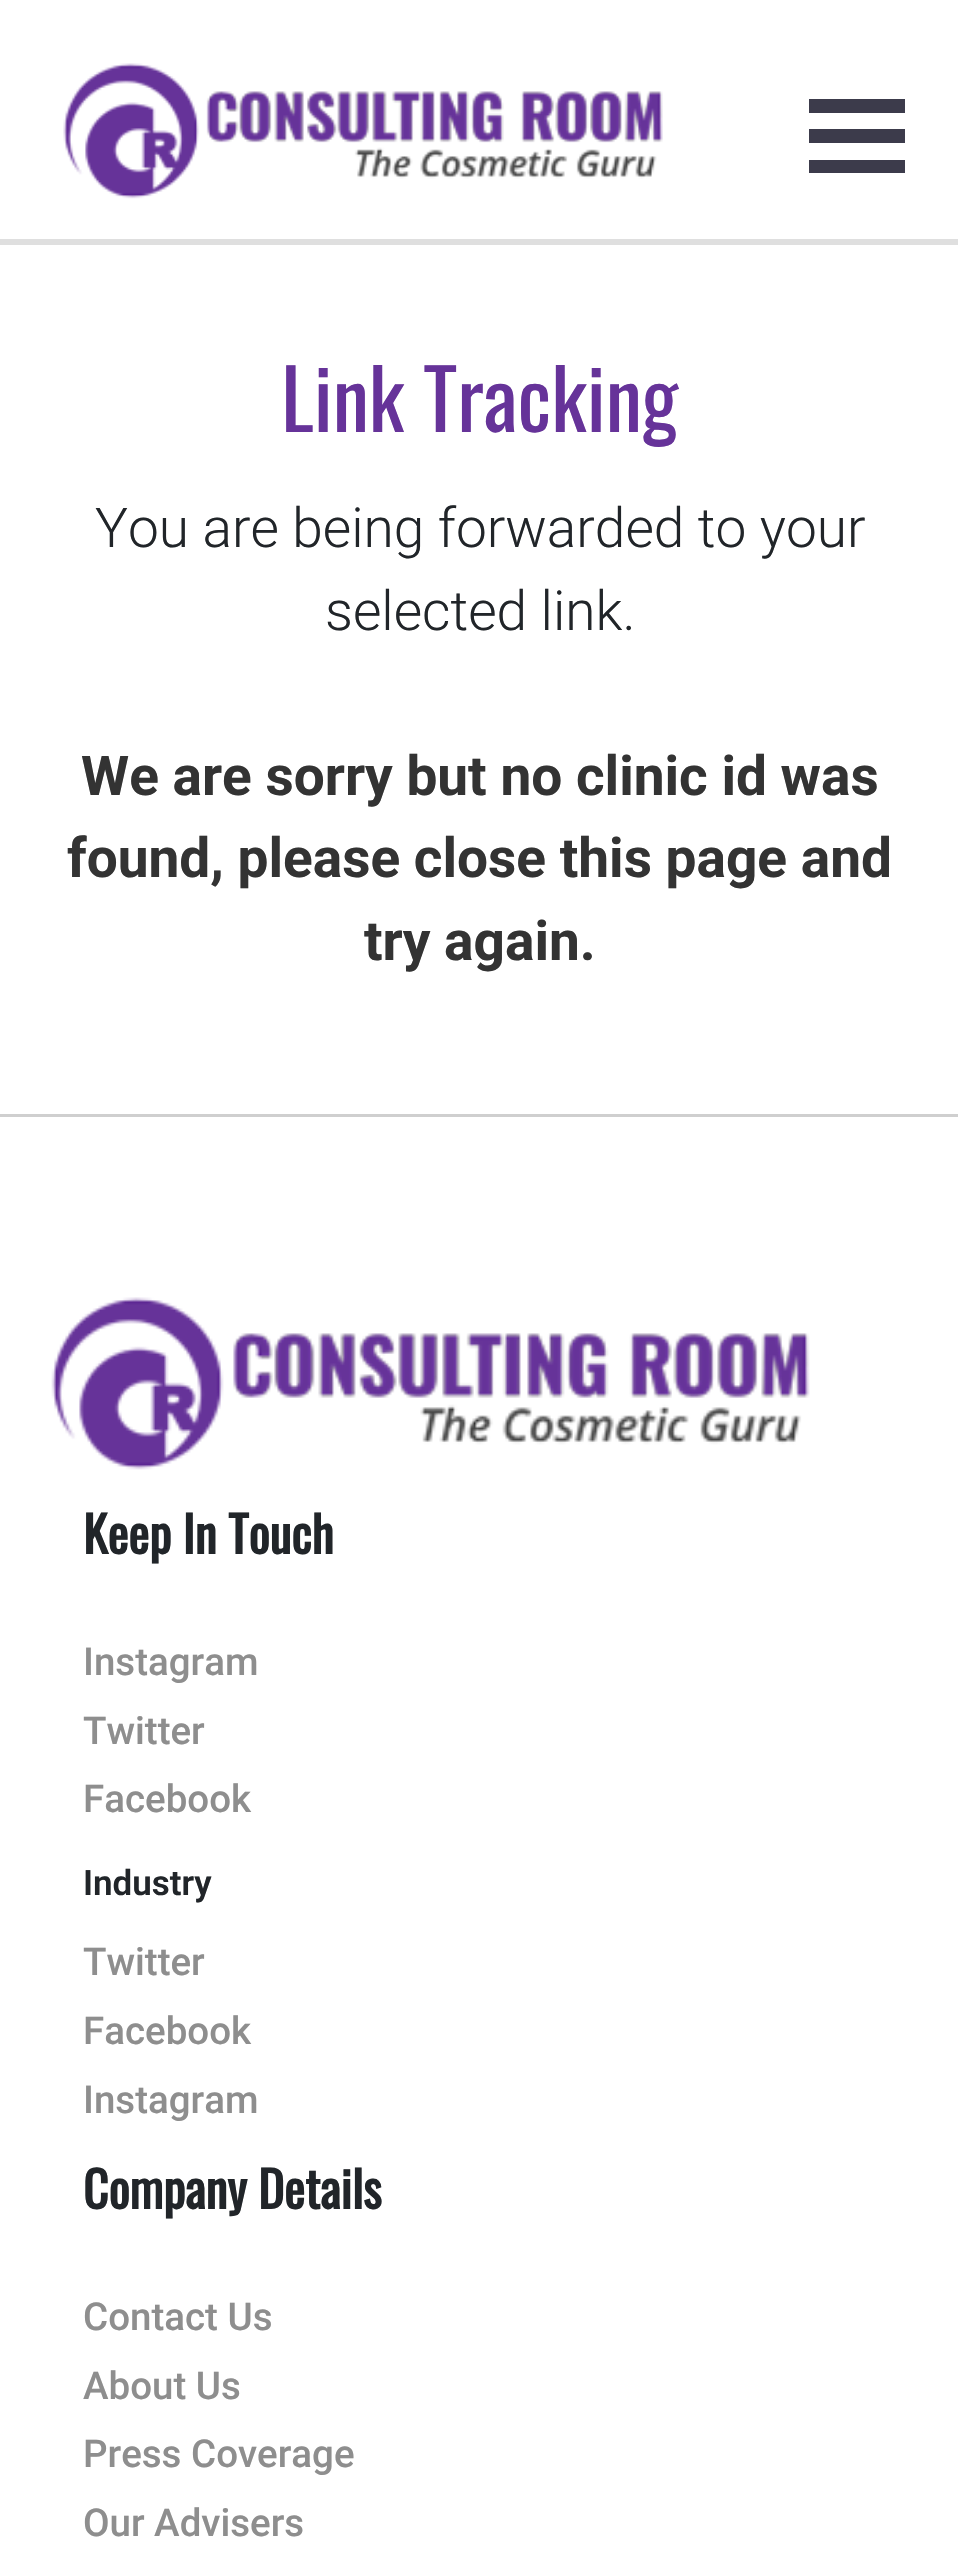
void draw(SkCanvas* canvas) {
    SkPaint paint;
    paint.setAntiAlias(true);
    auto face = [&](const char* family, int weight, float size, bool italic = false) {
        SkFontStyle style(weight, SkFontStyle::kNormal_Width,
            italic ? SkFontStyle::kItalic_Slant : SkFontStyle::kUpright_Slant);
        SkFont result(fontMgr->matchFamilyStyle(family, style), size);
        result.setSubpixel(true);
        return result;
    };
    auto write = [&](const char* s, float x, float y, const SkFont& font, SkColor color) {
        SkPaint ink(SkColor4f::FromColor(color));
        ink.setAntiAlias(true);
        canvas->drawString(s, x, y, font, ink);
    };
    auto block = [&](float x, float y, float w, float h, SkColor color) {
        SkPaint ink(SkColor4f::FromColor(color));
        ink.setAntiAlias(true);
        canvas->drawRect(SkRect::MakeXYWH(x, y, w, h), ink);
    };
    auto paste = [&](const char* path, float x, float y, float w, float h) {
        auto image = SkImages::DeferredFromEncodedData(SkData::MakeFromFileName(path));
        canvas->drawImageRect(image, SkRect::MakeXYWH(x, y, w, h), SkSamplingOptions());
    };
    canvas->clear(SK_ColorWHITE);
    block(0, 239, 958, 6, SkColorSetRGB(223, 223, 223));
    paste("pic1.png", 63, 63, 600, 136);
    block(809, 99, 96, 14, SkColorSetRGB(60, 59, 75));
    block(809, 129, 96, 14, SkColorSetRGB(60, 59, 75));
    block(809, 160, 96, 13, SkColorSetRGB(60, 59, 75));
    auto kFont1 = face("Oswald", 400, 82.5f);
    write("Link Tracking", 281, 432, kFont1, SkColorSetRGB(102, 51, 153));
    auto kFont2 = face("Roboto", 300, 55);
    write("You are being forwarded to your", 95, 547, kFont2, SkColorSetRGB(33, 37, 41));
    write("selected link.", 325, 630, kFont2, SkColorSetRGB(33, 37, 41));
    auto kFont3 = face("Roboto", 700, 55);
    write("We are sorry but no clinic id was", 81, 795, kFont3, SkColorSetRGB(51, 51, 51));
    write("found, please close this page and", 67, 877, kFont3, SkColorSetRGB(51, 51, 51));
    write("try again.", 364, 960, kFont3, SkColorSetRGB(51, 51, 51));
    block(0, 1114, 958, 3, SkColorSetRGB(207, 207, 207));
    paste("pic2.png", 51, 1297, 759, 173);
    auto kFont4 = face("Oswald", 700, 49.5f);
    write("Keep In Touch", 83, 1554, kFont4, SkColorSetRGB(33, 37, 41));
    auto kFont5 = face("Roboto", 500, 38.5f);
    write("Instagram", 83, 1675, kFont5, SkColorSetRGB(142, 142, 142));
    write("Twitter", 83, 1744, kFont5, SkColorSetRGB(142, 142, 142));
    write("Facebook", 83, 1812, kFont5, SkColorSetRGB(142, 142, 142));
    auto kFont6 = face("Roboto", 600, 35);
    write("Industry", 83, 1895, kFont6, SkColorSetRGB(33, 37, 41));
    write("Twitter", 83, 1975, kFont5, SkColorSetRGB(142, 142, 142));
    write("Facebook", 83, 2044, kFont5, SkColorSetRGB(142, 142, 142));
    write("Instagram", 83, 2113, kFont5, SkColorSetRGB(142, 142, 142));
    write("Company Details", 83, 2209, kFont4, SkColorSetRGB(33, 37, 41));
    write("Contact Us", 83, 2330, kFont5, SkColorSetRGB(142, 142, 142));
    write("About Us", 83, 2399, kFont5, SkColorSetRGB(142, 142, 142));
    write("Press Coverage", 83, 2467, kFont5, SkColorSetRGB(142, 142, 142));
    write("Our Advisers", 83, 2536, kFont5, SkColorSetRGB(142, 142, 142));
}
